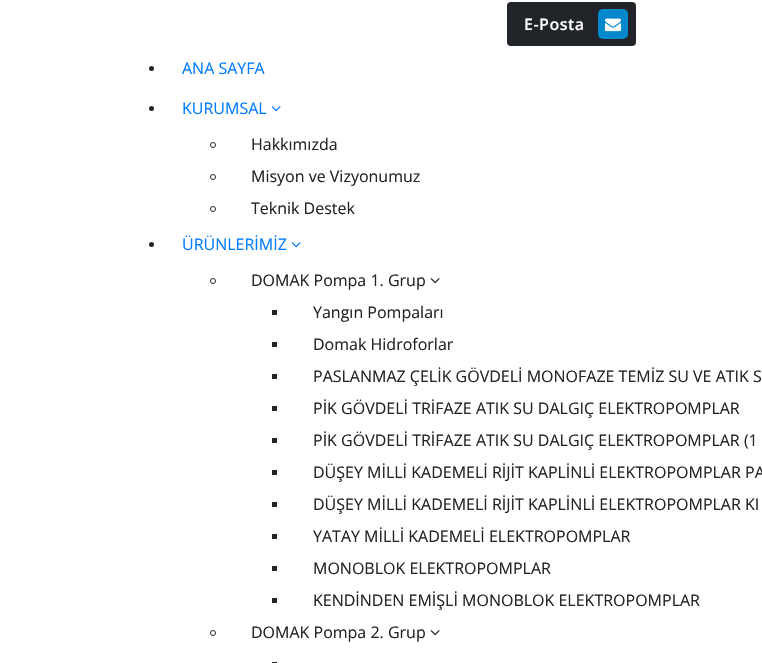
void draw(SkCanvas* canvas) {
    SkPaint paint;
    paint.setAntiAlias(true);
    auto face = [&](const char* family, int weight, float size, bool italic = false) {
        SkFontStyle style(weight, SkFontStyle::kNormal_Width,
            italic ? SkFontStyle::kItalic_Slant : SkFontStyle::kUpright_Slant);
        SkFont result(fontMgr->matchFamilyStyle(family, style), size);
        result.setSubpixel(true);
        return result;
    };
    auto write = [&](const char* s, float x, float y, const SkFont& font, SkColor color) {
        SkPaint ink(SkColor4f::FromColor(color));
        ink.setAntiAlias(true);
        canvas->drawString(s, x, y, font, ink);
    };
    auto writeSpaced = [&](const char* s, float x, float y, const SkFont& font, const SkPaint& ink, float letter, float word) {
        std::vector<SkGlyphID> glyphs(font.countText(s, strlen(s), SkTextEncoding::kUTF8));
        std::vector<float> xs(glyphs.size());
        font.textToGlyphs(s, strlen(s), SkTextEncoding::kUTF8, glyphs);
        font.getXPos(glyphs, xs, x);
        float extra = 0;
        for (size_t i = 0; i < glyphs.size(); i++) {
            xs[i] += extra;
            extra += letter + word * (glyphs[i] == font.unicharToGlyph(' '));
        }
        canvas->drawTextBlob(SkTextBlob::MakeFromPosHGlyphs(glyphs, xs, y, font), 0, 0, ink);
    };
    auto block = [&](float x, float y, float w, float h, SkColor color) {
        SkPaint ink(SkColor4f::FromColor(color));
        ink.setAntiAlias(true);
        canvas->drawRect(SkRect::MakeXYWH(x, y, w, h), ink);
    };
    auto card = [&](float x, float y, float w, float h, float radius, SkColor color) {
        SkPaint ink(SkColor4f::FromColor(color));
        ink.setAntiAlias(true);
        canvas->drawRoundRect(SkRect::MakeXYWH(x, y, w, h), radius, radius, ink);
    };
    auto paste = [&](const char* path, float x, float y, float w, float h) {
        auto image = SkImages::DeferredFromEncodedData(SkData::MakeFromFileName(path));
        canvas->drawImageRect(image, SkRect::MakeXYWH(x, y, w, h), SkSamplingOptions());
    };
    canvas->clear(SK_ColorWHITE);
    paint.setColor(SkColorSetRGB(33, 37, 41));
    canvas->drawRoundRect(SkRect::MakeXYWH(508, 3, 127, 42), 3, 3, paint);
    paint.setStyle(SkPaint::kStroke_Style);
    paint.setStrokeWidth(2);
    canvas->drawRoundRect(SkRect::MakeXYWH(508, 3, 127, 42), 3, 3, paint);
    auto kFont1 = face("Open Sans", 600, 16);
    paint.setStyle(SkPaint::kFill_Style);
    paint.setColor(SK_ColorWHITE);
    writeSpaced("E-Posta", 524, 30, kFont1, paint, 0.5f, 0);
    card(598, 9, 30, 30, 5, SkColorSetRGB(0, 136, 204));
    paste("pic1.png", 605, 18, 16, 14);
    paint.setColor(SkColorSetRGB(36, 36, 36));
    canvas->drawCircle(151.5f, 68.5f, 2.5f, paint);
    auto kFont2 = face("Open Sans", 400, 16);
    write("ANA SAYFA", 182, 74, kFont2, SkColorSetRGB(0, 123, 255));
    canvas->drawCircle(151.5f, 108.5f, 2.5f, paint);
    write("KURUMSAL", 182, 114, kFont2, SkColorSetRGB(0, 123, 255));
    paste("pic2.png", 271, 106, 10, 6);
    paint.setStyle(SkPaint::kStroke_Style);
    paint.setStrokeWidth(1);
    canvas->drawCircle(213, 145, 2.5f, paint);
    write("Hakkımızda", 251, 150, kFont2, SkColorSetRGB(36, 36, 36));
    canvas->drawCircle(213, 177, 2.5f, paint);
    write("Misyon ve Vizyonumuz", 251, 182, kFont2, SkColorSetRGB(36, 36, 36));
    canvas->drawCircle(213, 209, 2.5f, paint);
    write("Teknik Destek", 251, 214, kFont2, SkColorSetRGB(36, 36, 36));
    paint.setStyle(SkPaint::kFill_Style);
    canvas->drawCircle(151.5f, 244.5f, 2.5f, paint);
    write("ÜRÜNLERİMİZ", 182, 250, kFont2, SkColorSetRGB(0, 123, 255));
    paste("pic2.png", 291, 242, 10, 6);
    paint.setStyle(SkPaint::kStroke_Style);
    canvas->drawCircle(213, 281, 2.5f, paint);
    write("DOMAK Pompa 1. Grup", 251, 286, kFont2, SkColorSetRGB(36, 36, 36));
    paste("pic3.png", 430, 278, 10, 6);
    block(272, 310, 5, 5, SkColorSetRGB(36, 36, 36));
    write("Yangın Pompaları", 313, 318, kFont2, SkColorSetRGB(36, 36, 36));
    block(272, 342, 5, 5, SkColorSetRGB(36, 36, 36));
    write("Domak Hidroforlar", 313, 350, kFont2, SkColorSetRGB(36, 36, 36));
    block(272, 374, 5, 5, SkColorSetRGB(36, 36, 36));
    write("PASLANMAZ ÇELİK GÖVDELİ MONOFAZE TEMİZ SU VE ATIK S", 313, 382, kFont2, SkColorSetRGB(36, 36, 36));
    block(272, 406, 5, 5, SkColorSetRGB(36, 36, 36));
    write("PİK GÖVDELİ TRİFAZE ATIK SU DALGIÇ ELEKTROPOMPLAR", 313, 414, kFont2, SkColorSetRGB(36, 36, 36));
    block(272, 438, 5, 5, SkColorSetRGB(36, 36, 36));
    write("PİK GÖVDELİ TRİFAZE ATIK SU DALGIÇ ELEKTROPOMPLAR (1", 313, 446, kFont2, SkColorSetRGB(36, 36, 36));
    block(272, 470, 5, 5, SkColorSetRGB(36, 36, 36));
    write("DÜŞEY MİLLİ KADEMELİ RİJİT KAPLİNLİ ELEKTROPOMPLAR PA", 313, 478, kFont2, SkColorSetRGB(36, 36, 36));
    block(272, 502, 5, 5, SkColorSetRGB(36, 36, 36));
    write("DÜŞEY MİLLİ KADEMELİ RİJİT KAPLİNLİ ELEKTROPOMPLAR KI", 313, 510, kFont2, SkColorSetRGB(36, 36, 36));
    block(272, 534, 5, 5, SkColorSetRGB(36, 36, 36));
    write("YATAY MİLLİ KADEMELİ ELEKTROPOMPLAR", 313, 542, kFont2, SkColorSetRGB(36, 36, 36));
    block(272, 566, 5, 5, SkColorSetRGB(36, 36, 36));
    write("MONOBLOK ELEKTROPOMPLAR", 313, 574, kFont2, SkColorSetRGB(36, 36, 36));
    block(272, 598, 5, 5, SkColorSetRGB(36, 36, 36));
    write("KENDİNDEN EMİŞLİ MONOBLOK ELEKTROPOMPLAR", 313, 606, kFont2, SkColorSetRGB(36, 36, 36));
    canvas->drawCircle(213, 633, 2.5f, paint);
    write("DOMAK Pompa 2. Grup", 251, 638, kFont2, SkColorSetRGB(36, 36, 36));
    paste("pic3.png", 430, 630, 10, 6);
    block(272, 662, 5, 1, SkColorSetRGB(36, 36, 36));
}
